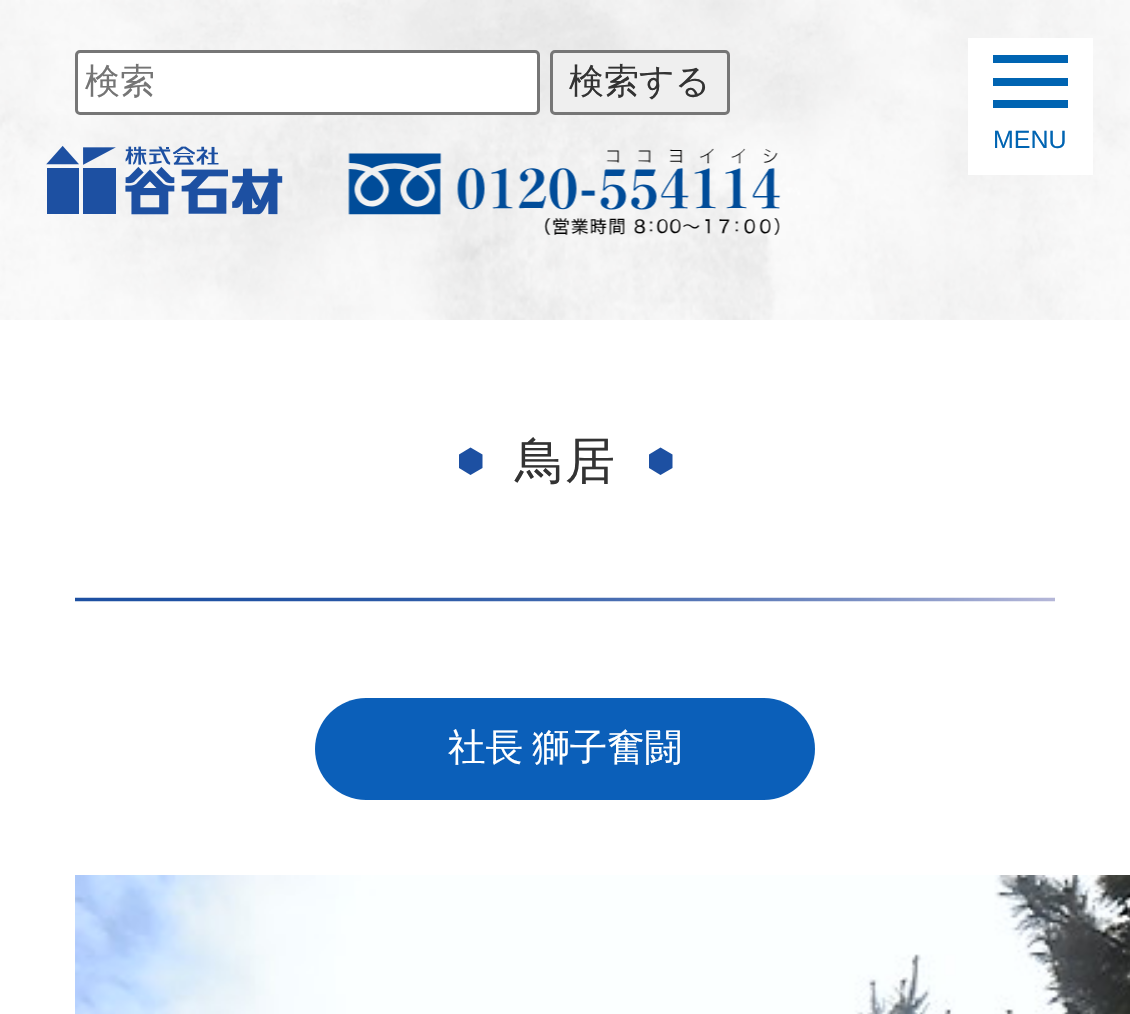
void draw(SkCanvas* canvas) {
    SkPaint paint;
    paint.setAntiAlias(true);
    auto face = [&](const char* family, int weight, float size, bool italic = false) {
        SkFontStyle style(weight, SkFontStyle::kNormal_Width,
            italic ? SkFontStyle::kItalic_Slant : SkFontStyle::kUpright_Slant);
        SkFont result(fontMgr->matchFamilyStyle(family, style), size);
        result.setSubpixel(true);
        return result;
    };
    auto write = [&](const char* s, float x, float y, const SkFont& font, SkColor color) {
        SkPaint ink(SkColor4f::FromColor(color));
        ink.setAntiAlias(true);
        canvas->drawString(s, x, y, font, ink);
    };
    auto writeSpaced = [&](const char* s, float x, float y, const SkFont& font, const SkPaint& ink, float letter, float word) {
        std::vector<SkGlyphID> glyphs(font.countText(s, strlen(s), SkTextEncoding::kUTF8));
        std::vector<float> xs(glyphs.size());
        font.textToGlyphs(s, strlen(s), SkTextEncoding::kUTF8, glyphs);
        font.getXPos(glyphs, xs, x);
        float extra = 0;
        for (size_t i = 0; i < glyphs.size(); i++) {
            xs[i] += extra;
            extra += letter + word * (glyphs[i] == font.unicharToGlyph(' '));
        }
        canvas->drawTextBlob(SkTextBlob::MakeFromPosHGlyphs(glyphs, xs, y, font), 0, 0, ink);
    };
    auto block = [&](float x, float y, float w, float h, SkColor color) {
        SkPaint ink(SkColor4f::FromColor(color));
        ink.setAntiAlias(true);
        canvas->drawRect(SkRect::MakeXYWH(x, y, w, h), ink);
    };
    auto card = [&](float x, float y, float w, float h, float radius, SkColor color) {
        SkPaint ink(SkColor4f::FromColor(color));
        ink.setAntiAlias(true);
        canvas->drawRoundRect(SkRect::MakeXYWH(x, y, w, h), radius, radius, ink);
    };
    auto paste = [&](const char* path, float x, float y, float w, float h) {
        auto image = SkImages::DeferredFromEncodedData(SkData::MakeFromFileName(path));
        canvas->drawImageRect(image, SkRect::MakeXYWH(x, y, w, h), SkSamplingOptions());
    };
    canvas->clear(SK_ColorWHITE);
    paste("pic1.png", 0, 0, 1130, 320);
    paint.setColor(SK_ColorWHITE);
    canvas->drawRoundRect(SkRect::MakeXYWH(76.5f, 51.5f, 462, 62), 3.5f, 3.5f, paint);
    paint.setStyle(SkPaint::kStroke_Style);
    paint.setStrokeWidth(3);
    paint.setColor(SkColorSetRGB(118, 118, 118));
    canvas->drawRoundRect(SkRect::MakeXYWH(76.5f, 51.5f, 462, 62), 3.5f, 3.5f, paint);
    auto kFont1 = face("WenQuanYi Zen Hei", 500, 35);
    write("検索", 85, 93, kFont1, SkColorSetRGB(117, 117, 117));
    paint.setStyle(SkPaint::kFill_Style);
    paint.setColor(SkColorSetRGB(239, 239, 239));
    canvas->drawRoundRect(SkRect::MakeXYWH(551.5f, 51.5f, 177, 62), 3.5f, 3.5f, paint);
    paint.setStyle(SkPaint::kStroke_Style);
    paint.setColor(SkColorSetRGB(118, 118, 118));
    canvas->drawRoundRect(SkRect::MakeXYWH(551.5f, 51.5f, 177, 62), 3.5f, 3.5f, paint);
    write("検索する", 569, 93, kFont1, SkColorSetRGB(51, 51, 51));
    paste("pic2.png", 46, 145, 237, 70);
    paste("pic3.png", 348, 148, 433, 87);
    block(968, 38, 125, 137, SK_ColorWHITE);
    block(993, 55, 75, 8, SkColorSetRGB(0, 100, 178));
    block(993, 78, 75, 8, SkColorSetRGB(0, 100, 178));
    block(993, 100, 75, 8, SkColorSetRGB(0, 100, 178));
    auto kFont2 = face("Liberation Sans", 400, 25);
    write("MENU", 993, 148, kFont2, SkColorSetRGB(0, 100, 178));
    paint.setStyle(SkPaint::kFill_Style);
    paint.setColor(SkColorSetRGB(29, 80, 162));
    canvas->drawPath(SkPathBuilder().moveTo(482.5f, 468).lineTo(482.5f, 454.5f).lineTo(470.5f, 447.5f).lineTo(459, 454.5f).lineTo(459, 468).lineTo(470.5f, 475).close().detach(), paint);
    auto kFont3 = face("WenQuanYi Zen Hei", 500, 50);
    write("鳥居", 515, 478, kFont3, SkColorSetRGB(51, 51, 51));
    canvas->drawPath(SkPathBuilder().moveTo(672.5f, 468).lineTo(672.5f, 454.5f).lineTo(660.5f, 447.5f).lineTo(649, 454.5f).lineTo(649, 468).lineTo(660.5f, 475).close().detach(), paint);
    paint.setStyle(SkPaint::kStroke_Style);
    paint.setStrokeWidth(3.7f);
    {
        const SkColor colors[] = {SkColorSetRGB(29, 80, 162), SkColorSetRGB(33, 82, 163), SkColorSetRGB(44, 90, 167), SkColorSetRGB(62, 103, 174), SkColorSetRGB(89, 120, 183), SkColorSetRGB(122, 143, 195), SkColorSetRGB(163, 171, 210), SkColorSetRGB(181, 183, 216)};
        const float stops[] = {0, 0.18f, 0.34f, 0.49f, 0.65f, 0.8f, 0.94f, 1};
        const SkPoint ends[] = {{75, 599}, {1055, 599}};
        paint.setShader(SkGradientShader::MakeLinear(ends, colors, stops, 8, SkTileMode::kClamp));
        paint.setAlpha(255);
    }
    canvas->drawPath(SkPathBuilder().moveTo(1055, 599.5f).lineTo(75, 599.5f).detach(), paint);
    card(315, 698, 500, 102, 51, SkColorSetRGB(11, 95, 185));
    auto kFont4 = face("WenQuanYi Zen Hei", 500, 37.5f);
    paint.setStyle(SkPaint::kFill_Style);
    paint.setShader(nullptr);
    paint.setColor(SK_ColorWHITE);
    writeSpaced("社長 獅子奮闘", 448, 760, kFont4, paint, 0, -2);
    paste("pic4.png", 75, 875, 1055, 139);
}
